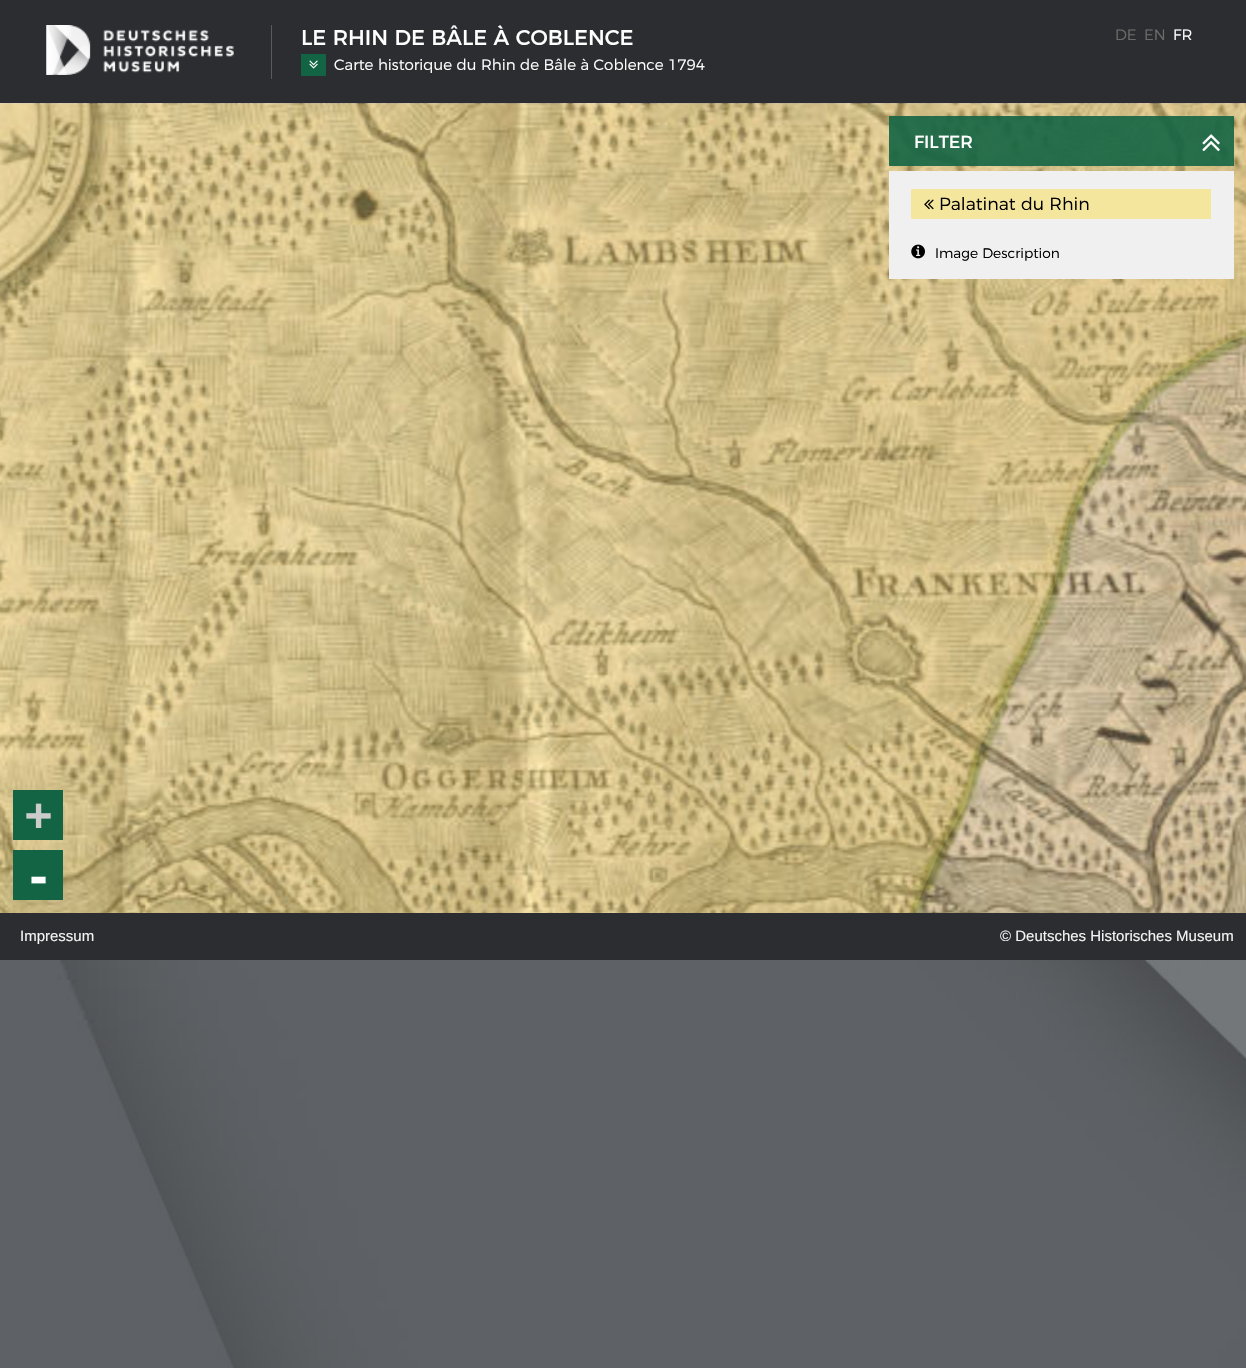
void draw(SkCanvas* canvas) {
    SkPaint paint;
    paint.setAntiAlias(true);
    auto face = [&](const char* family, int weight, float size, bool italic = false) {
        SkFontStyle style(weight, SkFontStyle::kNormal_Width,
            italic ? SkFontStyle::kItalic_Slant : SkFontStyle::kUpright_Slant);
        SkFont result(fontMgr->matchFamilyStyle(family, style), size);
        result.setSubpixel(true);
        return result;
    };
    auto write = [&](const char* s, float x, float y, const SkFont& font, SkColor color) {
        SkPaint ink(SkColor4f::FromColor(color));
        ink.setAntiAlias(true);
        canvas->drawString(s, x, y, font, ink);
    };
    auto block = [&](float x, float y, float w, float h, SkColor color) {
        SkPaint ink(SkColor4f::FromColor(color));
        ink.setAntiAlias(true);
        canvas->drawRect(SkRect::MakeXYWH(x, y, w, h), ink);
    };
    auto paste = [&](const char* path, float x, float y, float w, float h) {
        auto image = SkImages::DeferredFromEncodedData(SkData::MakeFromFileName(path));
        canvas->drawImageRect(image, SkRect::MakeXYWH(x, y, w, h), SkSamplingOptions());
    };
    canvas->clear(SK_ColorWHITE);
    paste("pic1.png", 0, 960, 1246, 408);
    block(0, 0, 1246, 103, SkColorSetRGB(44, 45, 49));
    block(271, 25, 1, 54, SkColorSetRGB(88, 90, 93));
    paste("pic2.png", 46, 25, 188, 50);
    auto kFont1 = face("Montserrat", 400, 21.25f);
    write("LE RHIN DE BÂLE À COBLENCE", 301, 45, kFont1, SK_ColorWHITE);
    block(301, 54, 25, 22, SkColorSetRGB(19, 100, 68));
    paste("pic3.png", 309, 60, 9, 9);
    auto kFont2 = face("Montserrat", 300, 15);
    write("Carte historique du Rhin de Bâle à Coblence 1794", 334, 70, kFont2, SK_ColorWHITE);
    write("DE", 1115, 40, kFont2, SkColorSetRGB(109, 108, 108));
    write("EN", 1144, 40, kFont2, SkColorSetRGB(109, 108, 108));
    write("FR", 1173, 40, kFont2, SK_ColorWHITE);
    paste("pic7.png", 0, 103, 1246, 810);
    canvas->save();
    canvas->clipRect(SkRect::MakeXYWH(0, 104, 1246, 809));
    paint.setColor(SkColorSetARGB(51, 250, 219, 75));
    canvas->drawPath(SkPathBuilder(SkPathFillType::kEvenOdd).moveTo(-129, 19).lineTo(-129, 996).lineTo(889, 996).lineTo(892, 958).lineTo(914, 912).lineTo(938, 855).lineTo(966, 805).lineTo(981, 745).lineTo(1029, 649).lineTo(1055, 585).lineTo(1069, 520).lineTo(1098, 458).lineTo(1084, 19).close().detach(), paint);
    canvas->drawPath(SkPathBuilder(SkPathFillType::kEvenOdd).moveTo(1084, 19).lineTo(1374, 19).lineTo(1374, 298).lineTo(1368, 298).lineTo(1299, 314).lineTo(1222, 345).lineTo(1152, 388).lineTo(1126, 415).lineTo(1112, 432).lineTo(1098, 458).close().detach(), paint);
    canvas->restore();
    block(889, 116, 345, 50, SkColorSetARGB(230, 19, 100, 68));
    auto kFont3 = face("Montserrat", 400, 17.5f);
    write("FILTER", 914, 148, kFont3, SK_ColorWHITE);
    paste("pic4.png", 1202, 134, 18, 18);
    block(889, 171, 345, 108, SkColorSetRGB(240, 240, 240));
    block(911, 189, 300, 30, SkColorSetRGB(245, 230, 158));
    paste("pic5.png", 924, 199, 10, 11);
    auto kFont4 = face("Montserrat", 300, 17.5f);
    write("Palatinat du Rhin", 939, 210, kFont4, SK_ColorBLACK);
    paste("pic6.png", 911, 244, 14, 15);
    auto kFont5 = face("Montserrat", 300, 13.75f);
    write("Image Description", 935, 258, kFont5, SK_ColorBLACK);
    block(13, 790, 50, 50, SkColorSetRGB(19, 100, 68));
    auto kFont6 = face("DejaVu Sans Mono", 700, 45);
    write("+", 25, 830, kFont6, SkColorSetRGB(204, 204, 204));
    block(13, 850, 50, 50, SkColorSetRGB(19, 100, 68));
    write("-", 25, 893, kFont6, SK_ColorWHITE);
    block(0, 913, 1246, 47, SkColorSetRGB(44, 45, 49));
    auto kFont7 = face("Liberation Sans", 400, 15);
    write("Impressum", 20, 941, kFont7, SkColorSetRGB(244, 244, 244));
    write("© Deutsches Historisches Museum", 1000, 941, kFont7, SkColorSetRGB(244, 244, 244));
}
